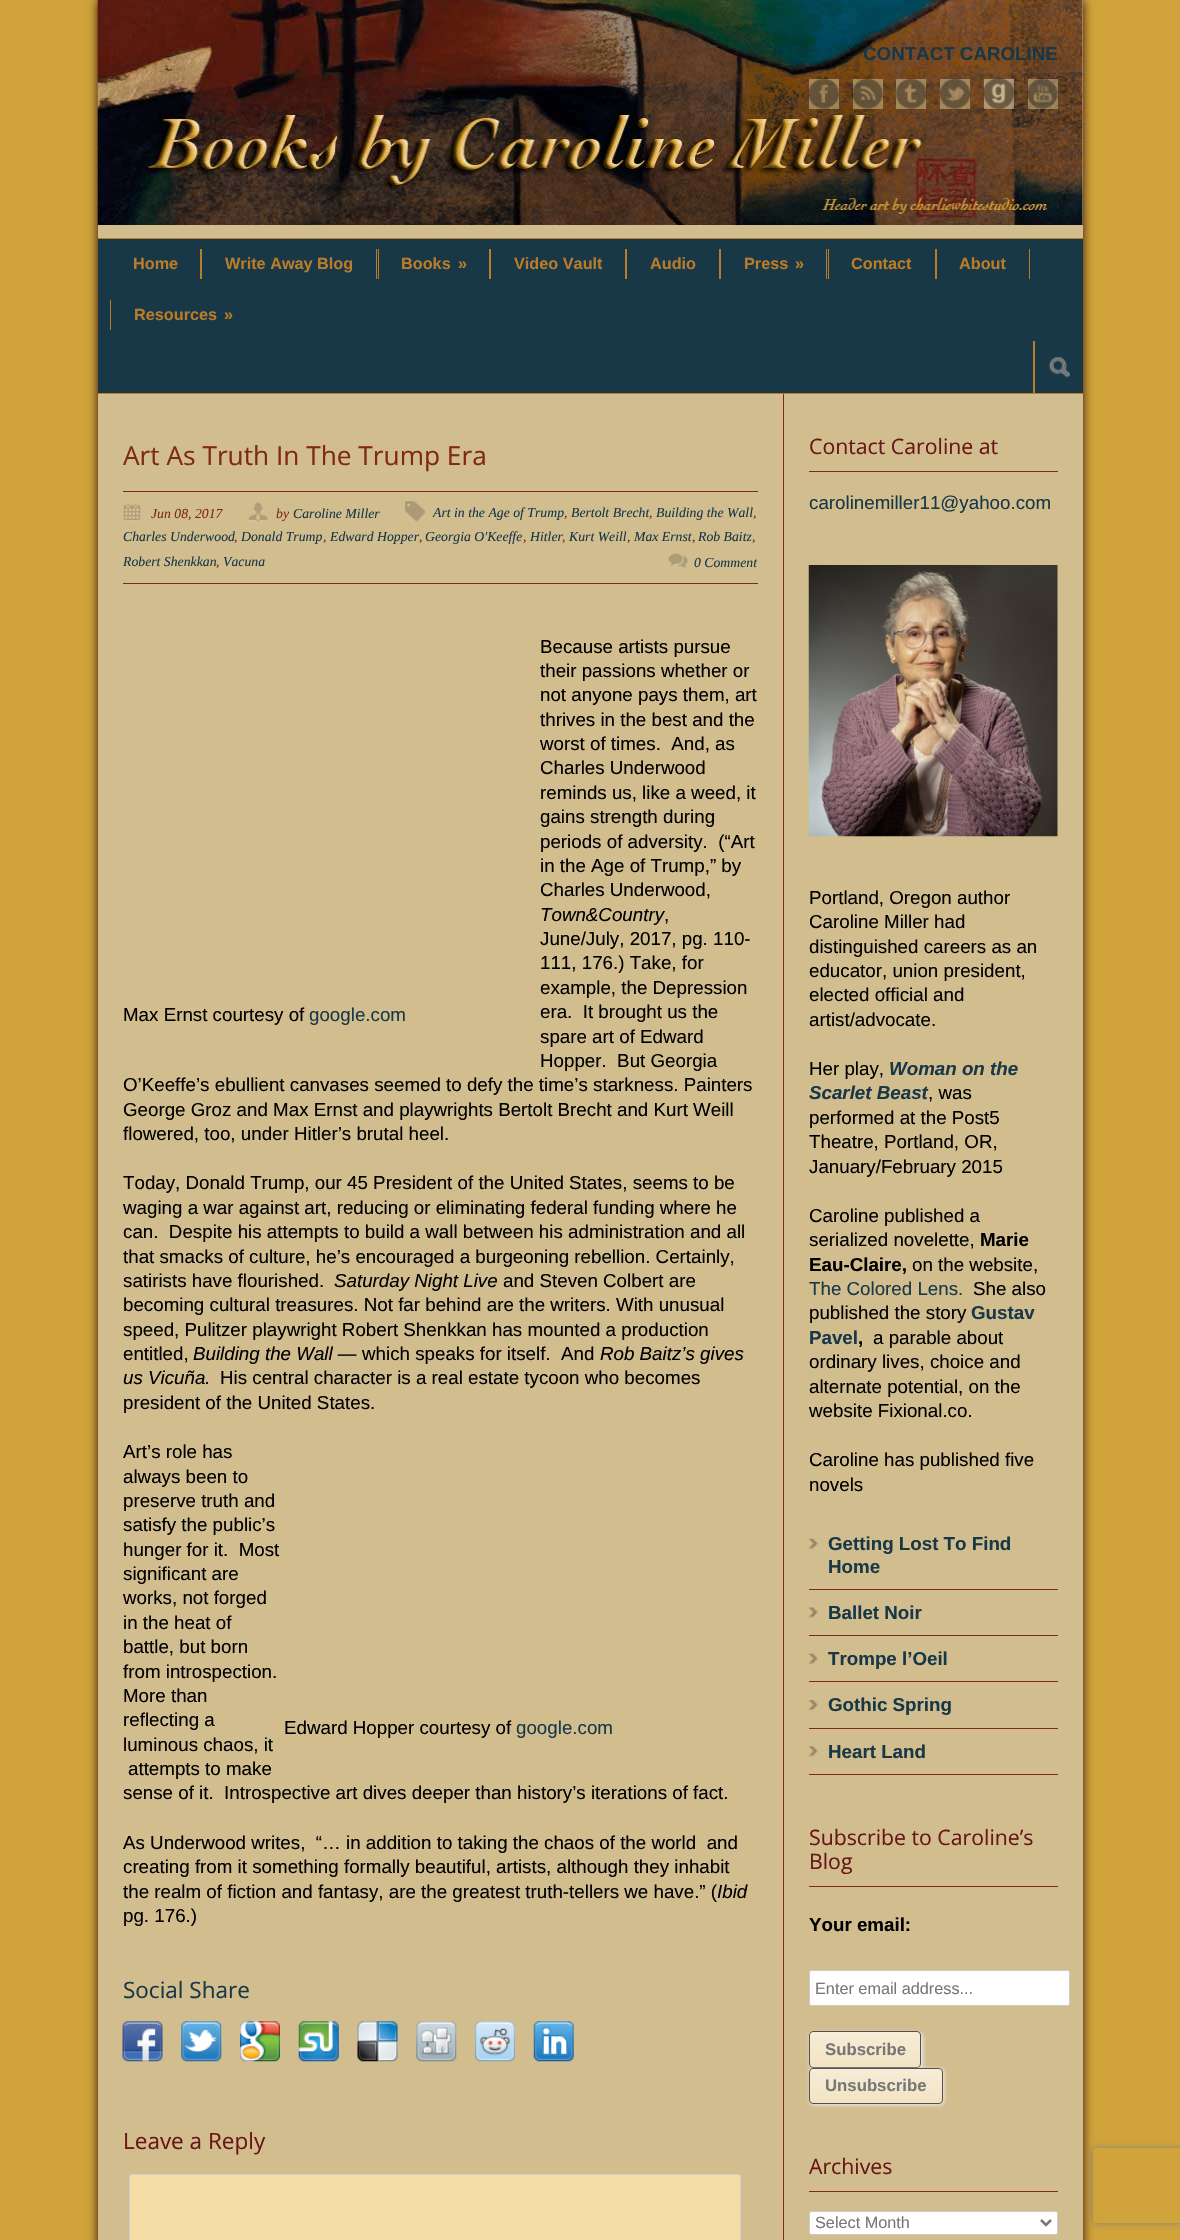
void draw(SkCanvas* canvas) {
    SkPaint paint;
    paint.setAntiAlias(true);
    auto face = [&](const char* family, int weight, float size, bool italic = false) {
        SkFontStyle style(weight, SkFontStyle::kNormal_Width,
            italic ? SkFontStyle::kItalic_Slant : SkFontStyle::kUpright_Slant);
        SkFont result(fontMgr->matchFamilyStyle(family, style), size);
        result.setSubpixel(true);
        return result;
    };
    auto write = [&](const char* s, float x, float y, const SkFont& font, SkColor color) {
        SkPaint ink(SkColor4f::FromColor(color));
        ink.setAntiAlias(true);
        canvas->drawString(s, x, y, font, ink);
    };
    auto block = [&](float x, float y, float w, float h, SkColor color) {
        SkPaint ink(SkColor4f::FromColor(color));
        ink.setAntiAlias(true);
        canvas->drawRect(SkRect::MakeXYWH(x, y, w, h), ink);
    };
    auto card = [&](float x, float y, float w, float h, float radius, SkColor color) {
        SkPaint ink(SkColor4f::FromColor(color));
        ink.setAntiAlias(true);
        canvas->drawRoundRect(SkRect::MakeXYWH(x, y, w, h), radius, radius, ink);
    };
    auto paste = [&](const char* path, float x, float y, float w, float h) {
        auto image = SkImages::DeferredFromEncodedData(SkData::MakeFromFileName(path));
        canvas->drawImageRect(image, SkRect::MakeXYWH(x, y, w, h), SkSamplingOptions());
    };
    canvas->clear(SkColorSetRGB(208, 164, 58));
    paint.setColor(SkColorSetRGB(51, 9, 10));
    paint.setMaskFilter(SkMaskFilter::MakeBlur(kNormal_SkBlurStyle, 5));
    canvas->drawRect(SkRect::MakeXYWH(98, 0, 985, 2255), paint);
    paint.setMaskFilter(nullptr);
    block(98, 0, 985, 2240, SkColorSetRGB(209, 189, 142));
    paste("pic1.png", 97, 0, 986, 225);
    auto kFont1 = face("Liberation Sans", 700, 18.75f);
    write("CONTACT CAROLINE", 863, 60, kFont1, SkColorSetRGB(24, 55, 71));
    block(809, 79, 30, 30, SkColorSetARGB(140, 209, 189, 142));
    paste("pic2.png", 808, 78, 31, 31);
    block(853, 79, 30, 30, SkColorSetARGB(140, 209, 189, 142));
    paste("pic3.png", 852, 78, 31, 31);
    block(896, 79, 30, 30, SkColorSetARGB(140, 209, 189, 142));
    paste("pic4.png", 896, 78, 31, 31);
    block(940, 79, 30, 30, SkColorSetARGB(140, 209, 189, 142));
    paste("pic5.png", 940, 78, 30, 31);
    block(984, 79, 30, 30, SkColorSetARGB(140, 209, 189, 142));
    paste("pic6.png", 983, 78, 31, 31);
    block(1028, 79, 30, 30, SkColorSetARGB(140, 209, 189, 142));
    paste("pic7.png", 1027, 78, 31, 31);
    canvas->save();
    canvas->clipRect(SkRect::MakeXYWH(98, 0, 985, 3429));
    paint.setColor(SkColorSetRGB(223, 195, 156));
    paint.setMaskFilter(SkMaskFilter::MakeBlur(kNormal_SkBlurStyle, 3));
    canvas->drawRect(SkRect::MakeXYWH(99, 240, 982, 154), paint);
    paint.setMaskFilter(nullptr);
    canvas->restore();
    block(98, 239, 985, 154, SkColorSetRGB(24, 55, 71));
    block(98, 238, 985, 1, SkColorSetRGB(186, 125, 39));
    block(98, 393, 985, 1, SkColorSetRGB(186, 125, 39));
    block(200, 249, 2, 30, SkColorSetRGB(186, 125, 39));
    auto kFont2 = face("Liberation Sans", 700, 16.25f);
    write("Home", 133, 269, kFont2, SkColorSetRGB(186, 125, 39));
    block(376, 249, 1, 30, SkColorSetRGB(186, 125, 39));
    write("Write Away Blog", 225, 269, kFont2, SkColorSetRGB(186, 125, 39));
    block(489, 249, 2, 30, SkColorSetRGB(186, 125, 39));
    block(378, 249, 1, 30, SkColorSetRGB(186, 125, 39));
    write("Books", 401, 269, kFont2, SkColorSetRGB(186, 125, 39));
    write("»", 458, 269, kFont2, SkColorSetRGB(186, 125, 39));
    block(625, 249, 2, 30, SkColorSetRGB(186, 125, 39));
    write("Video Vault", 514, 269, kFont2, SkColorSetRGB(186, 125, 39));
    block(719, 249, 2, 30, SkColorSetRGB(186, 125, 39));
    write("Audio", 650, 269, kFont2, SkColorSetRGB(186, 125, 39));
    block(826, 249, 1, 30, SkColorSetRGB(186, 125, 39));
    write("Press", 744, 269, kFont2, SkColorSetRGB(186, 125, 39));
    write("»", 795, 269, kFont2, SkColorSetRGB(186, 125, 39));
    block(935, 249, 2, 30, SkColorSetRGB(186, 125, 39));
    block(828, 249, 1, 30, SkColorSetRGB(186, 125, 39));
    write("Contact", 851, 269, kFont2, SkColorSetRGB(186, 125, 39));
    block(1029, 249, 1, 30, SkColorSetRGB(186, 125, 39));
    write("About", 959, 269, kFont2, SkColorSetRGB(186, 125, 39));
    block(110, 300, 1, 30, SkColorSetRGB(186, 125, 39));
    write("Resources", 134, 320, kFont2, SkColorSetRGB(186, 125, 39));
    write("»", 224, 320, kFont2, SkColorSetRGB(186, 125, 39));
    block(1033, 341, 2, 52, SkColorSetRGB(186, 125, 39));
    paste("pic8.png", 1048, 356, 22, 22);
    auto kFont3 = face("Open Sans", 400, 26.25f);
    write("Art As Truth In The Trump Era", 123, 465, kFont3, SkColorSetRGB(128, 41, 23));
    block(123, 491, 635, 1, SkColorSetRGB(128, 41, 23));
    block(123, 583, 635, 1, SkColorSetRGB(128, 41, 23));
    paste("pic9.png", 123, 503, 18, 18);
    auto kFont4 = face("Liberation Serif", 400, 13.75f, true);
    write("Jun 08, 2017", 151, 518, kFont4, SkColorSetRGB(128, 41, 23));
    paste("pic10.png", 248, 502, 20, 20);
    write("by", 276, 518, kFont4, SkColorSetRGB(128, 41, 23));
    write("Caroline Miller", 293, 518, kFont4, SkColorSetRGB(24, 55, 71));
    paste("pic11.png", 405, 501, 20, 21);
    write("Art in the Age of Trump", 433, 517, kFont4, SkColorSetRGB(24, 55, 71));
    write(",", 564, 517, kFont4, SkColorSetRGB(128, 41, 23));
    write("Bertolt Brecht", 571, 517, kFont4, SkColorSetRGB(24, 55, 71));
    write(",", 649, 517, kFont4, SkColorSetRGB(128, 41, 23));
    write("Building the Wall", 656, 517, kFont4, SkColorSetRGB(24, 55, 71));
    write(",", 753, 517, kFont4, SkColorSetRGB(128, 41, 23));
    write("Charles Underwood", 123, 541, kFont4, SkColorSetRGB(24, 55, 71));
    write(",", 234, 541, kFont4, SkColorSetRGB(128, 41, 23));
    write("Donald Trump", 241, 541, kFont4, SkColorSetRGB(24, 55, 71));
    write(",", 323, 541, kFont4, SkColorSetRGB(128, 41, 23));
    write("Edward Hopper", 330, 541, kFont4, SkColorSetRGB(24, 55, 71));
    write(",", 419, 541, kFont4, SkColorSetRGB(128, 41, 23));
    write("Georgia O'Keeffe", 425, 541, kFont4, SkColorSetRGB(24, 55, 71));
    write(",", 523, 541, kFont4, SkColorSetRGB(128, 41, 23));
    write("Hitler", 530, 541, kFont4, SkColorSetRGB(24, 55, 71));
    write(",", 562, 541, kFont4, SkColorSetRGB(128, 41, 23));
    write("Kurt Weill", 569, 541, kFont4, SkColorSetRGB(24, 55, 71));
    write(",", 627, 541, kFont4, SkColorSetRGB(128, 41, 23));
    write("Max Ernst", 634, 541, kFont4, SkColorSetRGB(24, 55, 71));
    write(",", 692, 541, kFont4, SkColorSetRGB(128, 41, 23));
    write("Rob Baitz", 698, 541, kFont4, SkColorSetRGB(24, 55, 71));
    write(",", 752, 541, kFont4, SkColorSetRGB(128, 41, 23));
    write("Robert Shenkkan", 123, 566, kFont4, SkColorSetRGB(24, 55, 71));
    write(",", 216, 566, kFont4, SkColorSetRGB(128, 41, 23));
    write("Vacuna", 223, 566, kFont4, SkColorSetRGB(24, 55, 71));
    paste("pic12.png", 668, 553, 20, 16);
    write("0 Comment", 694, 567, kFont4, SkColorSetRGB(24, 55, 71));
    auto kFont5 = face("Liberation Sans", 400, 18.75f);
    write("Because artists pursue", 540, 653, kFont5, SK_ColorBLACK);
    write("their passions whether or", 540, 677, kFont5, SK_ColorBLACK);
    write("not anyone pays them, art", 540, 701, kFont5, SK_ColorBLACK);
    write("thrives in the best and the", 540, 726, kFont5, SK_ColorBLACK);
    write("worst of times.  And, as", 540, 750, kFont5, SK_ColorBLACK);
    write("Charles Underwood", 540, 774, kFont5, SK_ColorBLACK);
    write("reminds us, like a weed, it", 540, 799, kFont5, SK_ColorBLACK);
    write("gains strength during", 540, 823, kFont5, SK_ColorBLACK);
    write("periods of adversity.  (“Art", 540, 848, kFont5, SK_ColorBLACK);
    write("in the Age of Trump,” by", 540, 872, kFont5, SK_ColorBLACK);
    write("Charles Underwood,", 540, 896, kFont5, SK_ColorBLACK);
    auto kFont6 = face("Liberation Sans", 400, 18.75f, true);
    write("Town&Country", 540, 921, kFont6, SK_ColorBLACK);
    write(",", 664, 921, kFont5, SK_ColorBLACK);
    write("June/July, 2017, pg. 110-", 540, 945, kFont5, SK_ColorBLACK);
    write("111, 176.) Take, for", 540, 969, kFont5, SK_ColorBLACK);
    write("example, the Depression", 540, 994, kFont5, SK_ColorBLACK);
    write("era.  It brought us the", 540, 1018, kFont5, SK_ColorBLACK);
    write("spare art of Edward", 540, 1043, kFont5, SK_ColorBLACK);
    write("Hopper.  But Georgia", 540, 1067, kFont5, SK_ColorBLACK);
    write("O’Keeffe’s ebullient canvases seemed to defy the time’s starkness. Painters", 123, 1091, kFont5, SK_ColorBLACK);
    write("George Groz and Max Ernst and playwrights Bertolt Brecht and Kurt Weill", 123, 1116, kFont5, SK_ColorBLACK);
    write("flowered, too, under Hitler’s brutal heel.", 123, 1140, kFont5, SK_ColorBLACK);
    write("Max Ernst courtesy of", 123, 1021, kFont5, SK_ColorBLACK);
    write("google.com", 309, 1021, kFont5, SkColorSetRGB(24, 55, 71));
    write("Today, Donald Trump, our 45 President of the United States, seems to be", 123, 1189, kFont5, SK_ColorBLACK);
    write("waging a war against art, reducing or eliminating federal funding where he", 123, 1214, kFont5, SK_ColorBLACK);
    write("can.  Despite his attempts to build a wall between his administration and all", 123, 1238, kFont5, SK_ColorBLACK);
    write("that smacks of culture, he’s encouraged a burgeoning rebellion. Certainly,", 123, 1263, kFont5, SK_ColorBLACK);
    write("satirists have flourished.", 123, 1287, kFont5, SK_ColorBLACK);
    write("Saturday Night Live", 334, 1287, kFont6, SK_ColorBLACK);
    write("and Steven Colbert are", 503, 1287, kFont5, SK_ColorBLACK);
    write("becoming cultural treasures. Not far behind are the writers. With unusual", 123, 1311, kFont5, SK_ColorBLACK);
    write("speed, Pulitzer playwright Robert Shenkkan has mounted a production", 123, 1336, kFont5, SK_ColorBLACK);
    write("entitled,", 123, 1360, kFont5, SK_ColorBLACK);
    write("Building the Wall —", 193, 1360, kFont6, SK_ColorBLACK);
    write("which speaks for itself.  And", 362, 1360, kFont5, SK_ColorBLACK);
    write("Rob Baitz’s gives", 600, 1360, kFont6, SK_ColorBLACK);
    write("us Vicuña.", 123, 1384, kFont6, SK_ColorBLACK);
    write("His central character is a real estate tycoon who becomes", 220, 1384, kFont5, SK_ColorBLACK);
    write("president of the United States.", 123, 1409, kFont5, SK_ColorBLACK);
    write("Art’s role has", 123, 1458, kFont5, SK_ColorBLACK);
    write("always been to", 123, 1483, kFont5, SK_ColorBLACK);
    write("preserve truth and", 123, 1507, kFont5, SK_ColorBLACK);
    write("satisfy the public’s", 123, 1531, kFont5, SK_ColorBLACK);
    write("hunger for it.  Most", 123, 1556, kFont5, SK_ColorBLACK);
    write("significant are", 123, 1580, kFont5, SK_ColorBLACK);
    write("works, not forged", 123, 1604, kFont5, SK_ColorBLACK);
    write("in the heat of", 123, 1629, kFont5, SK_ColorBLACK);
    write("battle, but born", 123, 1653, kFont5, SK_ColorBLACK);
    write("from introspection.", 123, 1678, kFont5, SK_ColorBLACK);
    write("More than", 123, 1702, kFont5, SK_ColorBLACK);
    write("reflecting a", 123, 1726, kFont5, SK_ColorBLACK);
    write("luminous chaos, it", 123, 1751, kFont5, SK_ColorBLACK);
    write("attempts to make", 128, 1775, kFont5, SK_ColorBLACK);
    write("sense of it.  Introspective art dives deeper than history’s iterations of fact.", 123, 1799, kFont5, SK_ColorBLACK);
    write("Edward Hopper courtesy of", 284, 1734, kFont5, SK_ColorBLACK);
    write("google.com", 516, 1734, kFont5, SkColorSetRGB(24, 55, 71));
    write("As Underwood writes,  “… in addition to taking the chaos of the world  and", 123, 1849, kFont5, SK_ColorBLACK);
    write("creating from it something formally beautiful, artists, although they inhabit", 123, 1873, kFont5, SK_ColorBLACK);
    write("the realm of fiction and fantasy, are the greatest truth-tellers we have.” (", 123, 1898, kFont5, SK_ColorBLACK);
    write("Ibid", 717, 1898, kFont6, SK_ColorBLACK);
    write("pg. 176.)", 123, 1922, kFont5, SK_ColorBLACK);
    auto kFont7 = face("Open Sans", 400, 22.5f);
    write("Social Share", 123, 1998, kFont7, SkColorSetRGB(24, 55, 71));
    paste("pic13.png", 122, 2021, 41, 41);
    paste("pic14.png", 181, 2021, 41, 41);
    paste("pic15.png", 240, 2021, 40, 41);
    paste("pic16.png", 298, 2021, 41, 41);
    paste("pic17.png", 357, 2021, 41, 41);
    paste("pic18.png", 416, 2021, 41, 41);
    paste("pic19.png", 475, 2021, 40, 41);
    paste("pic20.png", 533, 2021, 41, 41);
    write("Leave a Reply", 123, 2149, kFont7, SkColorSetRGB(104, 22, 23));
    paint.setColor(SkColorSetRGB(245, 221, 166));
    canvas->drawRoundRect(SkRect::MakeXYWH(129.5f, 2174.5f, 611, 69), 2, 2, paint);
    paint.setStyle(SkPaint::kStroke_Style);
    paint.setStrokeWidth(1);
    paint.setColor(SkColorSetRGB(207, 207, 207));
    canvas->drawRoundRect(SkRect::MakeXYWH(129.5f, 2174.5f, 611, 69), 2, 2, paint);
    block(783, 394, 1, 1846, SkColorSetRGB(128, 41, 23));
    block(809, 471, 249, 1, SkColorSetRGB(128, 41, 23));
    auto kFont8 = face("Open Sans", 400, 21.25f);
    write("Contact Caroline at", 809, 454, kFont8, SkColorSetRGB(104, 22, 23));
    write("carolinemiller11@yahoo.com", 809, 509, kFont5, SkColorSetRGB(24, 55, 71));
    paste("pic21.png", 808, 565, 250, 272);
    write("Portland, Oregon author", 809, 904, kFont5, SK_ColorBLACK);
    write("Caroline Miller had", 809, 928, kFont5, SK_ColorBLACK);
    write("distinguished careers as an", 809, 953, kFont5, SK_ColorBLACK);
    write("educator, union president,", 809, 977, kFont5, SK_ColorBLACK);
    write("elected official and", 809, 1001, kFont5, SK_ColorBLACK);
    write("artist/advocate.", 809, 1026, kFont5, SK_ColorBLACK);
    write("Her play,", 809, 1075, kFont5, SK_ColorBLACK);
    auto kFont9 = face("Liberation Sans", 700, 18.75f, true);
    write("Woman on the", 889, 1075, kFont9, SkColorSetRGB(24, 55, 71));
    write("Scarlet Beast", 809, 1099, kFont9, SkColorSetRGB(24, 55, 71));
    write(", was", 928, 1099, kFont5, SK_ColorBLACK);
    write("performed at the Post5", 809, 1124, kFont5, SK_ColorBLACK);
    write("Theatre, Portland, OR,", 809, 1148, kFont5, SK_ColorBLACK);
    write("January/February 2015", 809, 1173, kFont5, SK_ColorBLACK);
    write("Caroline published a", 809, 1222, kFont5, SK_ColorBLACK);
    write("serialized novelette,", 809, 1246, kFont5, SK_ColorBLACK);
    write("Marie", 980, 1246, kFont1, SK_ColorBLACK);
    write("Eau-Claire,", 809, 1271, kFont1, SK_ColorBLACK);
    write("on the website,", 912, 1271, kFont5, SK_ColorBLACK);
    write("The Colored Lens.", 809, 1295, kFont5, SkColorSetRGB(24, 55, 71));
    write("She also", 973, 1295, kFont5, SK_ColorBLACK);
    write("published the story", 809, 1319, kFont5, SK_ColorBLACK);
    write("Gustav", 971, 1319, kFont1, SkColorSetRGB(24, 55, 71));
    write("Pavel", 809, 1344, kFont1, SkColorSetRGB(24, 55, 71));
    write(",", 858, 1344, kFont1, SK_ColorBLACK);
    write("a parable about", 873, 1344, kFont5, SK_ColorBLACK);
    write("ordinary lives, choice and", 809, 1368, kFont5, SK_ColorBLACK);
    write("alternate potential, on the", 809, 1393, kFont5, SK_ColorBLACK);
    write("website Fixional.co.", 809, 1417, kFont5, SK_ColorBLACK);
    write("Caroline has published five", 809, 1466, kFont5, SK_ColorBLACK);
    write("novels", 809, 1491, kFont5, SK_ColorBLACK);
    paste("pic22.png", 808, 1538, 10, 11);
    block(809, 1589, 249, 1, SkColorSetRGB(128, 41, 23));
    write("Getting Lost To Find", 828, 1550, kFont1, SkColorSetRGB(24, 55, 71));
    write("Home", 828, 1573, kFont1, SkColorSetRGB(24, 55, 71));
    paste("pic23.png", 808, 1607, 10, 11);
    block(809, 1635, 249, 1, SkColorSetRGB(128, 41, 23));
    write("Ballet Noir", 828, 1619, kFont1, SkColorSetRGB(24, 55, 71));
    paste("pic22.png", 808, 1653, 10, 11);
    block(809, 1681, 249, 1, SkColorSetRGB(128, 41, 23));
    write("Trompe l’Oeil", 828, 1665, kFont1, SkColorSetRGB(24, 55, 71));
    paste("pic24.png", 808, 1700, 10, 10);
    block(809, 1728, 249, 1, SkColorSetRGB(128, 41, 23));
    write("Gothic Spring", 828, 1711, kFont1, SkColorSetRGB(24, 55, 71));
    paste("pic25.png", 808, 1746, 10, 11);
    block(809, 1774, 249, 1, SkColorSetRGB(128, 41, 23));
    write("Heart Land", 828, 1758, kFont1, SkColorSetRGB(24, 55, 71));
    block(809, 1886, 249, 1, SkColorSetRGB(128, 41, 23));
    write("Subscribe to Caroline’s", 809, 1845, kFont8, SkColorSetRGB(104, 22, 23));
    write("Blog", 809, 1869, kFont8, SkColorSetRGB(104, 22, 23));
    write("Your email:", 809, 1931, kFont1, SK_ColorBLACK);
    paint.setStyle(SkPaint::kFill_Style);
    paint.setColor(SK_ColorWHITE);
    canvas->drawRoundRect(SkRect::MakeXYWH(809.5f, 1970.5f, 260, 35), 2, 2, paint);
    paint.setStyle(SkPaint::kStroke_Style);
    paint.setColor(SkColorSetRGB(204, 204, 204));
    canvas->drawRoundRect(SkRect::MakeXYWH(809.5f, 1970.5f, 260, 35), 2, 2, paint);
    auto kFont10 = face("Liberation Sans", 400, 16.25f);
    write("Enter email address...", 815, 1994, kFont10, SkColorSetRGB(119, 119, 119));
    paint.setStyle(SkPaint::kFill_Style);
    paint.setColor(SkColorSetRGB(236, 236, 236));
    paint.setMaskFilter(SkMaskFilter::MakeBlur(kNormal_SkBlurStyle, 2));
    canvas->drawRoundRect(SkRect::MakeXYWH(810, 2033, 113, 36), 4, 4, paint);
    paint.setMaskFilter(nullptr);
    card(809, 2031, 112, 37, 4, SkColorSetRGB(242, 227, 194));
    paste("pic26.png", 809, 2032, 112, 30);
    paint.setStyle(SkPaint::kStroke_Style);
    paint.setColor(SkColorSetRGB(87, 79, 79));
    canvas->drawRoundRect(SkRect::MakeXYWH(809.5f, 2031.5f, 111, 36), 3.5f, 3.5f, paint);
    auto kFont11 = face("Liberation Sans", 700, 16.75f);
    write("Subscribe", 825, 2055, kFont11, SkColorSetRGB(119, 119, 119));
    paint.setStyle(SkPaint::kFill_Style);
    paint.setColor(SkColorSetRGB(236, 236, 236));
    paint.setMaskFilter(SkMaskFilter::MakeBlur(kNormal_SkBlurStyle, 2));
    canvas->drawRoundRect(SkRect::MakeXYWH(810, 2069, 134, 36), 4, 4, paint);
    paint.setMaskFilter(nullptr);
    card(809, 2068, 134, 36, 4, SkColorSetRGB(242, 227, 194));
    paste("pic27.png", 809, 2068, 134, 30);
    paint.setStyle(SkPaint::kStroke_Style);
    paint.setColor(SkColorSetRGB(87, 79, 79));
    canvas->drawRoundRect(SkRect::MakeXYWH(809.5f, 2068.5f, 133, 35), 3.5f, 3.5f, paint);
    write("Unsubscribe", 825, 2091, kFont11, SkColorSetRGB(119, 119, 119));
    block(809, 2191, 249, 1, SkColorSetRGB(128, 41, 23));
    write("Archives", 809, 2174, kFont8, SkColorSetRGB(104, 22, 23));
    paint.setStyle(SkPaint::kFill_Style);
    paint.setColor(SK_ColorWHITE);
    canvas->drawRoundRect(SkRect::MakeXYWH(809.5f, 2211.5f, 248, 23), 2, 2, paint);
    paint.setStyle(SkPaint::kStroke_Style);
    paint.setColor(SkColorSetRGB(204, 204, 204));
    canvas->drawRoundRect(SkRect::MakeXYWH(809.5f, 2211.5f, 248, 23), 2, 2, paint);
    paint.setStrokeWidth(2.5f);
    paint.setColor(SkColorSetRGB(119, 119, 119));
    canvas->drawPath(SkPathBuilder().moveTo(1041, 2220).lineTo(1046, 2225).lineTo(1051, 2220).detach(), paint);
    write("Select Month", 815, 2228, kFont10, SkColorSetRGB(119, 119, 119));
    canvas->save();
    canvas->clipPath(SkPathBuilder(SkPathFillType::kEvenOdd).moveTo(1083, 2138).lineTo(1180, 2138).lineTo(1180, 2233).lineTo(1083, 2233).close().moveTo(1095.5f, 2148).lineTo(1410.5f, 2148).cubicTo(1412, 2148, 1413, 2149, 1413, 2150.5f).lineTo(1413, 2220.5f).cubicTo(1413, 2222, 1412, 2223, 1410.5f, 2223).lineTo(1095.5f, 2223).cubicTo(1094, 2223, 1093, 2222, 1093, 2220.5f).lineTo(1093, 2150.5f).cubicTo(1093, 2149, 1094, 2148, 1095.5f, 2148).close().detach(), true);
    paint.setStyle(SkPaint::kFill_Style);
    paint.setColor(SkColorSetRGB(128, 128, 128));
    paint.setMaskFilter(SkMaskFilter::MakeBlur(kNormal_SkBlurStyle, 3));
    canvas->drawRoundRect(SkRect::MakeXYWH(1093, 2148, 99, 75), 2.5f, 2.5f, paint);
    paint.setMaskFilter(nullptr);
    canvas->restore();
}
